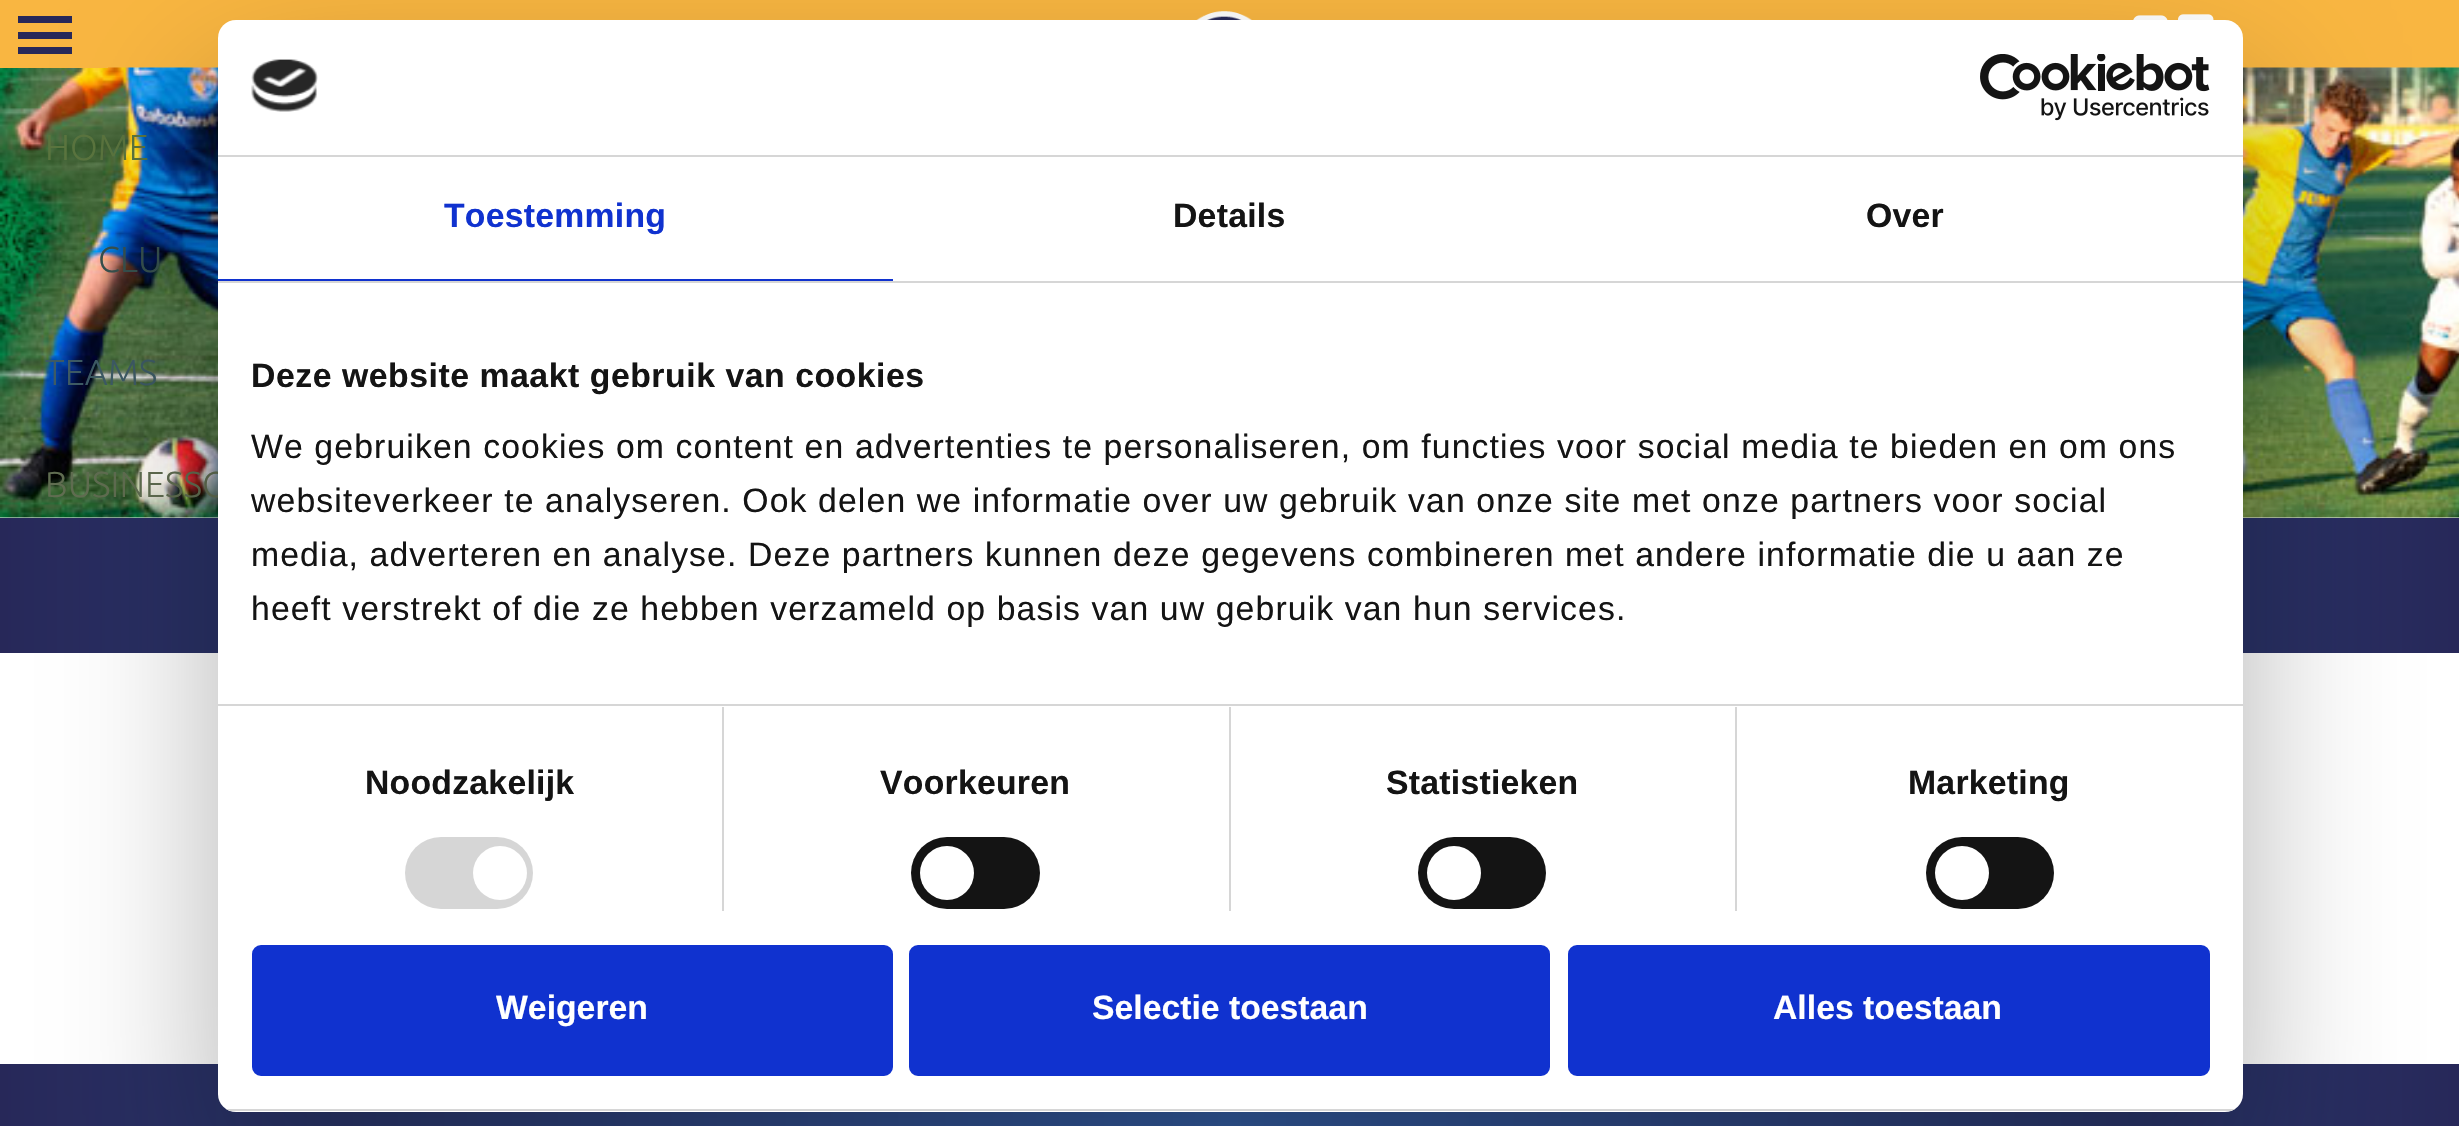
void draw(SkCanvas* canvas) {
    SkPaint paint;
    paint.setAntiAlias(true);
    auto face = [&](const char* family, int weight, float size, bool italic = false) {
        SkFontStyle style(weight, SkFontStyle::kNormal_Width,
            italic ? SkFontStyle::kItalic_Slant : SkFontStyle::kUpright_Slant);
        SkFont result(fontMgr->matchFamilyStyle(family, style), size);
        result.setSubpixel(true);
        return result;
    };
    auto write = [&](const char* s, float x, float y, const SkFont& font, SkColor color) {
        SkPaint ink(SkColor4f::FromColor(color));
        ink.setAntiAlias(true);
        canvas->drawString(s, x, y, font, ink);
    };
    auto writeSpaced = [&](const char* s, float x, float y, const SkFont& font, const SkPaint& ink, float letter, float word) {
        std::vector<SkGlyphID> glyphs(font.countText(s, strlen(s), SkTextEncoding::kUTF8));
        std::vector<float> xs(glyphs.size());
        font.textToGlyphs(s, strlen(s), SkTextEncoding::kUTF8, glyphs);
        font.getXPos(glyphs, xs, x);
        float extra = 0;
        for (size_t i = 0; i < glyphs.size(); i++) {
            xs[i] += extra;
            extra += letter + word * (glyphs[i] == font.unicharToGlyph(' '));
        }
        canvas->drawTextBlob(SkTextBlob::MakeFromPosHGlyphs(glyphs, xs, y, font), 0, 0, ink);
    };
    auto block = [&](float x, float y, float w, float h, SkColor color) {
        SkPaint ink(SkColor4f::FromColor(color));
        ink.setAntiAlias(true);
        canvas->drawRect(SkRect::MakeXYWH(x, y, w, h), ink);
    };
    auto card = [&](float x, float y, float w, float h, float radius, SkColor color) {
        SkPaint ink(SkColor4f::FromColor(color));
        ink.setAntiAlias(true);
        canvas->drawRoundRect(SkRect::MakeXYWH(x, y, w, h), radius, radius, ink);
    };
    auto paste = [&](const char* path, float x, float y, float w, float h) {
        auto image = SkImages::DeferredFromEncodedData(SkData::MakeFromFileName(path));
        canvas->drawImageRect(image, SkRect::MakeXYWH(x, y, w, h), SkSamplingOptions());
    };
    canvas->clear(SK_ColorWHITE);
    block(108, 0, 2351, 68, SkColorSetRGB(249, 182, 65));
    paste("pic1.png", 2133, 15, 35, 5);
    paste("pic2.png", 2178, 14, 36, 6);
    paste("pic3.png", 1196, 11, 56, 9);
    paste("pic4.png", 0, 67, 2459, 451);
    block(0, 0, 108, 68, SkColorSetRGB(249, 182, 65));
    block(18, 47, 54, 7, SkColorSetRGB(39, 40, 89));
    block(18, 32, 54, 7, SkColorSetRGB(39, 40, 89));
    block(18, 16, 54, 7, SkColorSetRGB(39, 40, 89));
    auto kFont1 = face("Ubuntu", 300, 36);
    write("HOME", 45, 160, kFont1, SkColorSetRGB(90, 116, 62));
    write("CLU", 98, 272, kFont1, SkColorSetRGB(54, 80, 77));
    write("TEAMS", 45, 385, kFont1, SkColorSetRGB(61, 90, 100));
    write("BUSINESSC", 45, 497, kFont1, SkColorSetRGB(96, 109, 81));
    {
        const SkColor colors[] = {SkColorSetRGB(39, 40, 89), SkColorSetRGB(52, 94, 165), SkColorSetRGB(39, 40, 89)};
        const float stops[] = {0, 0.5f, 1};
        const SkPoint ends[] = {{0, 585}, {2459, 585}};
        paint.setShader(SkGradientShader::MakeLinear(ends, colors, stops, 3, SkTileMode::kClamp));
        paint.setAlpha(255);
    }
    canvas->drawRect(SkRect::MakeXYWH(0, 518, 2459, 135), paint);
    {
        const SkColor colors[] = {SkColorSetRGB(39, 40, 89), SkColorSetRGB(52, 94, 165), SkColorSetRGB(39, 40, 89)};
        const float stops[] = {0, 0.5f, 1};
        const SkPoint ends[] = {{0, 1096}, {2459, 1096}};
        paint.setShader(SkGradientShader::MakeLinear(ends, colors, stops, 3, SkTileMode::kClamp));
        paint.setAlpha(255);
    }
    canvas->drawRect(SkRect::MakeXYWH(0, 1064, 2459, 62), paint);
    paint.setShader(nullptr);
    paint.setColor(SkColorSetARGB(77, 0, 0, 0));
    paint.setMaskFilter(SkMaskFilter::MakeBlur(kNormal_SkBlurStyle, 76.5f));
    canvas->drawRoundRect(SkRect::MakeXYWH(218, 92, 2025, 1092), 18, 18, paint);
    paint.setMaskFilter(nullptr);
    card(218, 20, 2025, 1092, 18, SK_ColorWHITE);
    block(218, 155, 2025, 2, SkColorSetRGB(214, 214, 214));
    paste("pic5.png", 251, 59, 67, 53);
    paste("pic6.png", 1980, 54, 230, 67);
    block(218, 281, 2025, 2, SkColorSetRGB(214, 214, 214));
    block(218, 279, 675, 2, SkColorSetRGB(16, 50, 207));
    auto kFont2 = face("Liberation Sans", 700, 33.75f);
    paint.setColor(SkColorSetRGB(16, 50, 207));
    writeSpaced("Toestemming", 444, 227, kFont2, paint, 0.25f, 0);
    paint.setColor(SkColorSetRGB(20, 20, 20));
    writeSpaced("Details", 1173, 227, kFont2, paint, 0.25f, 0);
    writeSpaced("Over", 1866, 227, kFont2, paint, 0.25f, 0);
    block(218, 704, 2025, 2, SkColorSetRGB(214, 214, 214));
    writeSpaced("Deze website maakt gebruik van cookies", 251, 387, kFont2, paint, 0.55f, 0);
    auto kFont3 = face("Liberation Sans", 400, 33.75f);
    writeSpaced("We gebruiken cookies om content en advertenties te personaliseren, om functies voor social media te bieden en om ons", 251, 458, kFont3, paint, 1.12f, 0);
    writeSpaced("websiteverkeer te analyseren. Ook delen we informatie over uw gebruik van onze site met onze partners voor social", 251, 512, kFont3, paint, 1.12f, 0);
    writeSpaced("media, adverteren en analyse. Deze partners kunnen deze gegevens combineren met andere informatie die u aan ze", 251, 566, kFont3, paint, 1.12f, 0);
    writeSpaced("heeft verstrekt of die ze hebben verzameld op basis van uw gebruik van hun services.", 251, 620, kFont3, paint, 1.12f, 0);
    block(722, 707, 2, 204, SkColorSetRGB(214, 214, 214));
    writeSpaced("Noodzakelijk", 365, 794, kFont2, paint, 0.25f, 0);
    card(405, 837, 128, 72, 36, SkColorSetRGB(214, 214, 214));
    paint.setColor(SK_ColorWHITE);
    canvas->drawCircle(500, 873, 27, paint);
    block(1229, 707, 2, 204, SkColorSetRGB(214, 214, 214));
    paint.setColor(SkColorSetRGB(20, 20, 20));
    writeSpaced("Voorkeuren", 880, 794, kFont2, paint, 0.25f, 0);
    card(911, 837, 129, 72, 36, SkColorSetRGB(20, 20, 20));
    paint.setColor(SK_ColorWHITE);
    canvas->drawCircle(947, 873, 27, paint);
    block(1735, 707, 2, 204, SkColorSetRGB(214, 214, 214));
    paint.setColor(SkColorSetRGB(20, 20, 20));
    writeSpaced("Statistieken", 1386, 794, kFont2, paint, 0.25f, 0);
    card(1418, 837, 128, 72, 36, SkColorSetRGB(20, 20, 20));
    paint.setColor(SK_ColorWHITE);
    canvas->drawCircle(1454, 873, 27, paint);
    paint.setColor(SkColorSetRGB(20, 20, 20));
    writeSpaced("Marketing", 1908, 794, kFont2, paint, 0.25f, 0);
    card(1926, 837, 128, 72, 36, SkColorSetRGB(20, 20, 20));
    paint.setColor(SK_ColorWHITE);
    canvas->drawCircle(1962, 873, 27, paint);
    canvas->save();
    canvas->clipPath(SkPathBuilder().moveTo(236, 20).lineTo(2225, 20).cubicTo(2235, 20, 2243, 28, 2243, 38).lineTo(2243, 1094).cubicTo(2243, 1104, 2235, 1112, 2225, 1112).lineTo(236, 1112).cubicTo(226, 1112, 218, 1104, 218, 1094).lineTo(218, 38).cubicTo(218, 28, 226, 20, 236, 20).close().detach(), true);
    block(218, 1109, 2025, 2, SkColorSetRGB(214, 214, 214));
    canvas->restore();
    paint.setColor(SkColorSetRGB(16, 50, 207));
    canvas->drawRoundRect(SkRect::MakeXYWH(254.5f, 947.5f, 636, 126), 6.5f, 6.5f, paint);
    paint.setStyle(SkPaint::kStroke_Style);
    paint.setStrokeWidth(5);
    canvas->drawRoundRect(SkRect::MakeXYWH(254.5f, 947.5f, 636, 126), 6.5f, 6.5f, paint);
    write("Weigeren", 496, 1019, kFont2, SK_ColorWHITE);
    paint.setStyle(SkPaint::kFill_Style);
    canvas->drawRoundRect(SkRect::MakeXYWH(911.5f, 947.5f, 636, 126), 6.5f, 6.5f, paint);
    paint.setStyle(SkPaint::kStroke_Style);
    canvas->drawRoundRect(SkRect::MakeXYWH(911.5f, 947.5f, 636, 126), 6.5f, 6.5f, paint);
    write("Selectie toestaan", 1092, 1019, kFont2, SK_ColorWHITE);
    paint.setStyle(SkPaint::kFill_Style);
    canvas->drawRoundRect(SkRect::MakeXYWH(1570.5f, 947.5f, 637, 126), 6.5f, 6.5f, paint);
    paint.setStyle(SkPaint::kStroke_Style);
    canvas->drawRoundRect(SkRect::MakeXYWH(1570.5f, 947.5f, 637, 126), 6.5f, 6.5f, paint);
    write("Alles toestaan", 1773, 1019, kFont2, SK_ColorWHITE);
}
